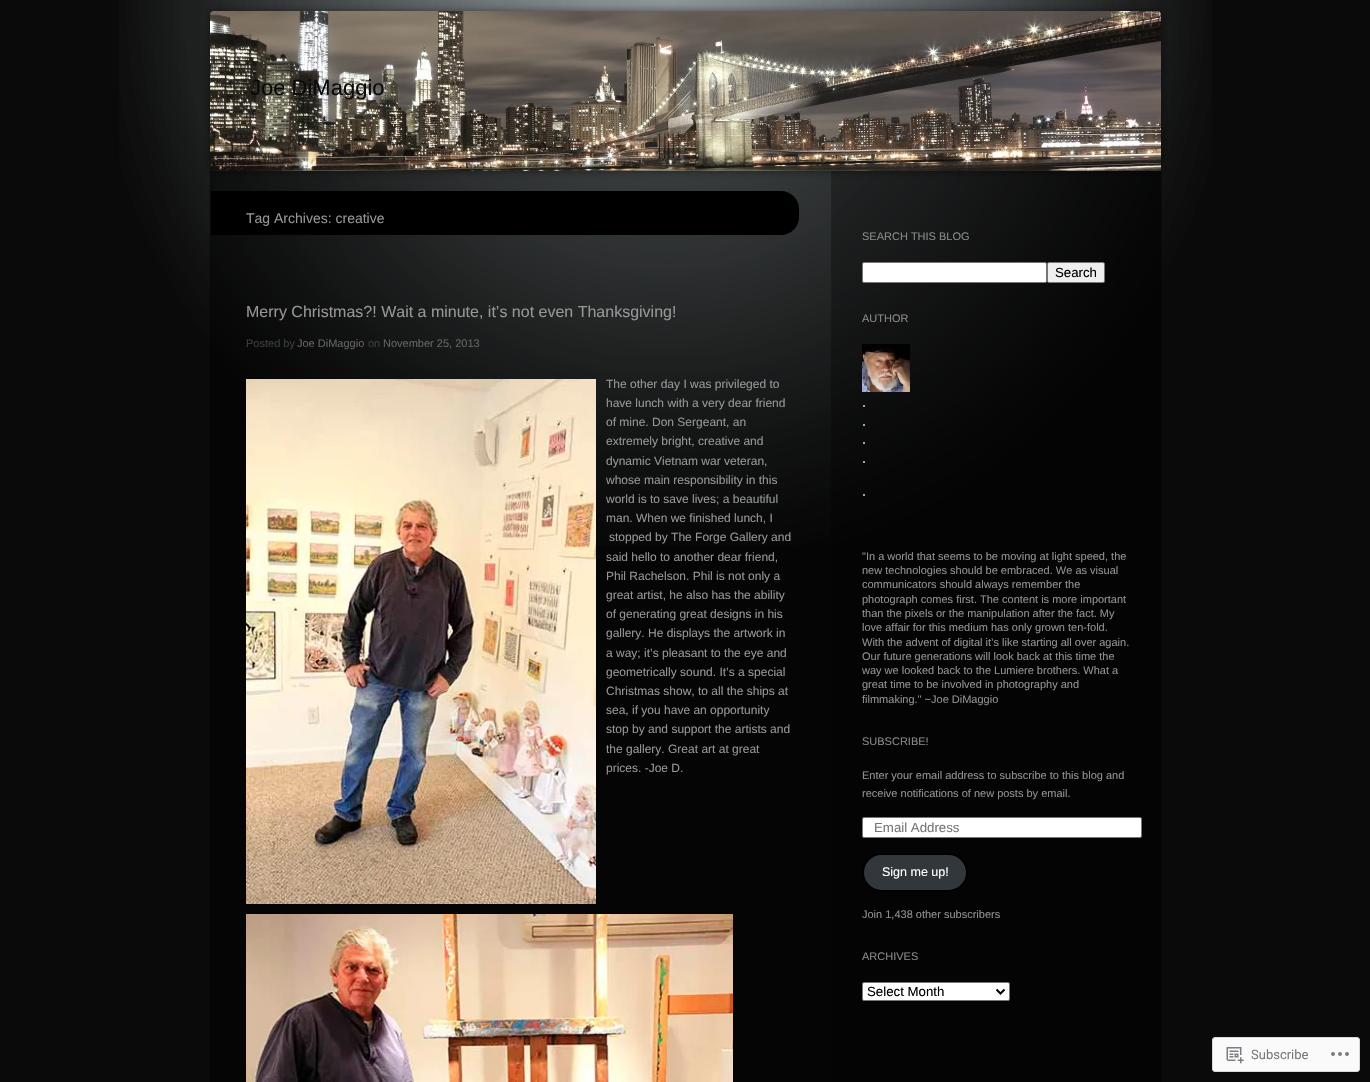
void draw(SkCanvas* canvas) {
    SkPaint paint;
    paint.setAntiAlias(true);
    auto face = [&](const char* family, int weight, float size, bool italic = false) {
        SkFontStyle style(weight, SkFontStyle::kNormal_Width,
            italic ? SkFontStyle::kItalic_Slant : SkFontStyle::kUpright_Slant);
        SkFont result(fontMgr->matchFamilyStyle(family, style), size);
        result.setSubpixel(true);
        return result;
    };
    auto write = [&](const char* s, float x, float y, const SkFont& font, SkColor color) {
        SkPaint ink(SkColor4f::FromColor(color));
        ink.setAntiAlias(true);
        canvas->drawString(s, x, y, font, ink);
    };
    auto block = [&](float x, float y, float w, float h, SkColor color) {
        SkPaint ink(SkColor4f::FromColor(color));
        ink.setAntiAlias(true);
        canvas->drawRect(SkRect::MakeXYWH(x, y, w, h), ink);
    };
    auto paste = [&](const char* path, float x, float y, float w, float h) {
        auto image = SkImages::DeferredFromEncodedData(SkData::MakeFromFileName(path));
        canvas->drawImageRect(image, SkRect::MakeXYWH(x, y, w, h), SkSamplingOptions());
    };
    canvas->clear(SkColorSetRGB(10, 10, 10));
    paste("pic1.png", 119, 0, 1093, 546);
    paste("pic3.png", 209, 171, 953, 911);
    paint.setColor(SkColorSetARGB(128, 0, 0, 0));
    paint.setMaskFilter(SkMaskFilter::MakeBlur(kNormal_SkBlurStyle, 4));
    canvas->drawRoundRect(SkRect::MakeXYWH(210, 11, 951, 160), 4, 4, paint);
    paint.setMaskFilter(nullptr);
    paste("pic2.png", 210, 11, 951, 160);
    auto kFont1 = face("Liberation Sans", 400, 22);
    write("Joe DiMaggio", 250, 95, kFont1, SkColorSetRGB(10, 10, 10));
    paint.setColor(SK_ColorBLACK);
    canvas->drawPath(SkPathBuilder().moveTo(211, 191).lineTo(781, 191).cubicTo(791, 191, 799, 199, 799, 209).lineTo(799, 217).cubicTo(799, 227, 791, 235, 781, 235).lineTo(211, 235).close().detach(), paint);
    auto kFont2 = face("Liberation Sans", 400, 14);
    write("Tag Archives: creative", 246, 223, kFont2, SkColorSetRGB(150, 150, 150));
    auto kFont3 = face("Liberation Sans", 400, 16);
    write("Merry Christmas?! Wait a minute, it’s not even Thanksgiving!", 246, 317, kFont3, SkColorSetRGB(150, 150, 150));
    auto kFont4 = face("Liberation Sans", 400, 11);
    write("Posted by", 246, 347, kFont4, SkColorSetRGB(61, 61, 61));
    write("Joe DiMaggio", 297, 347, kFont4, SkColorSetRGB(99, 99, 99));
    write("on", 368, 347, kFont4, SkColorSetRGB(61, 61, 61));
    write("November 25, 2013", 383, 347, kFont4, SkColorSetRGB(99, 99, 99));
    paste("pic4.png", 246, 379, 350, 525);
    auto kFont5 = face("Liberation Sans", 400, 12);
    write("The other day I was privileged to", 606, 388, kFont5, SkColorSetRGB(150, 150, 150));
    write("have lunch with a very dear friend", 606, 407, kFont5, SkColorSetRGB(150, 150, 150));
    write("of mine. Don Sergeant, an", 606, 426, kFont5, SkColorSetRGB(150, 150, 150));
    write("extremely bright, creative and", 606, 445, kFont5, SkColorSetRGB(150, 150, 150));
    write("dynamic Vietnam war veteran,", 606, 465, kFont5, SkColorSetRGB(150, 150, 150));
    write("whose main responsibility in this", 606, 484, kFont5, SkColorSetRGB(150, 150, 150));
    write("world is to save lives; a beautiful", 606, 503, kFont5, SkColorSetRGB(150, 150, 150));
    write("man. When we finished lunch, I", 606, 522, kFont5, SkColorSetRGB(150, 150, 150));
    write("stopped by The Forge Gallery and", 609, 541, kFont5, SkColorSetRGB(150, 150, 150));
    write("said hello to another dear friend,", 606, 561, kFont5, SkColorSetRGB(150, 150, 150));
    write("Phil Rachelson. Phil is not only a", 606, 580, kFont5, SkColorSetRGB(150, 150, 150));
    write("great artist, he also has the ability", 606, 599, kFont5, SkColorSetRGB(150, 150, 150));
    write("of generating great designs in his", 606, 618, kFont5, SkColorSetRGB(150, 150, 150));
    write("gallery. He displays the artwork in", 606, 637, kFont5, SkColorSetRGB(150, 150, 150));
    write("a way; it’s pleasant to the eye and", 606, 657, kFont5, SkColorSetRGB(150, 150, 150));
    write("geometrically sound. It’s a special", 606, 676, kFont5, SkColorSetRGB(150, 150, 150));
    write("Christmas show, to all the ships at", 606, 695, kFont5, SkColorSetRGB(150, 150, 150));
    write("sea, if you have an opportunity", 606, 714, kFont5, SkColorSetRGB(150, 150, 150));
    write("stop by and support the artists and", 606, 733, kFont5, SkColorSetRGB(150, 150, 150));
    write("the gallery. Great art at great", 606, 753, kFont5, SkColorSetRGB(150, 150, 150));
    write("prices. -Joe D.", 606, 772, kFont5, SkColorSetRGB(150, 150, 150));
    paste("pic5.png", 246, 914, 487, 168);
    write("SEARCH THIS BLOG", 862, 240, kFont4, SkColorSetRGB(137, 137, 137));
    paint.setColor(SK_ColorWHITE);
    canvas->drawRoundRect(SkRect::MakeXYWH(862.5f, 262.5f, 184, 20), 1.5f, 1.5f, paint);
    paint.setStyle(SkPaint::kStroke_Style);
    paint.setStrokeWidth(1);
    paint.setColor(SkColorSetRGB(118, 118, 118));
    canvas->drawRoundRect(SkRect::MakeXYWH(862.5f, 262.5f, 184, 20), 1.5f, 1.5f, paint);
    paint.setStyle(SkPaint::kFill_Style);
    paint.setColor(SkColorSetRGB(239, 239, 239));
    canvas->drawRoundRect(SkRect::MakeXYWH(1047.5f, 262.5f, 57, 20), 1.5f, 1.5f, paint);
    paint.setStyle(SkPaint::kStroke_Style);
    paint.setColor(SkColorSetRGB(118, 118, 118));
    canvas->drawRoundRect(SkRect::MakeXYWH(1047.5f, 262.5f, 57, 20), 1.5f, 1.5f, paint);
    auto kFont6 = face("Liberation Sans", 400, 13.25f);
    write("Search", 1055, 277, kFont6, SK_ColorBLACK);
    write("AUTHOR", 862, 322, kFont4, SkColorSetRGB(137, 137, 137));
    paste("pic6.png", 862, 344, 48, 48);
    block(863, 405, 2, 2, SkColorSetRGB(162, 162, 162));
    block(863, 424, 2, 2, SkColorSetRGB(162, 162, 162));
    block(863, 442, 2, 2, SkColorSetRGB(162, 162, 162));
    block(863, 461, 2, 2, SkColorSetRGB(162, 162, 162));
    block(863, 494, 2, 2, SkColorSetRGB(162, 162, 162));
    write("\"In a world that seems to be moving at light speed, the", 862, 560, kFont4, SkColorSetRGB(144, 144, 144));
    write("new technologies should be embraced. We as visual", 862, 574, kFont4, SkColorSetRGB(144, 144, 144));
    write("communicators should always remember the", 862, 588, kFont4, SkColorSetRGB(144, 144, 144));
    write("photograph comes first. The content is more important", 862, 603, kFont4, SkColorSetRGB(144, 144, 144));
    write("than the pixels or the manipulation after the fact. My", 862, 617, kFont4, SkColorSetRGB(144, 144, 144));
    write("love affair for this medium has only grown ten-fold.", 862, 631, kFont4, SkColorSetRGB(144, 144, 144));
    write("With the advent of digital it’s like starting all over again.", 862, 646, kFont4, SkColorSetRGB(144, 144, 144));
    write("Our future generations will look back at this time the", 862, 660, kFont4, SkColorSetRGB(144, 144, 144));
    write("way we looked back to the Lumiere brothers. What a", 862, 674, kFont4, SkColorSetRGB(144, 144, 144));
    write("great time to be involved in photography and", 862, 688, kFont4, SkColorSetRGB(144, 144, 144));
    write("filmmaking.\" ~Joe DiMaggio", 862, 703, kFont4, SkColorSetRGB(144, 144, 144));
    write("SUBSCRIBE!", 862, 745, kFont4, SkColorSetRGB(137, 137, 137));
    write("Enter your email address to subscribe to this blog and", 862, 779, kFont4, SkColorSetRGB(144, 144, 144));
    write("receive notifications of new posts by email.", 862, 797, kFont4, SkColorSetRGB(144, 144, 144));
    paint.setStyle(SkPaint::kFill_Style);
    paint.setColor(SK_ColorWHITE);
    canvas->drawRoundRect(SkRect::MakeXYWH(862.5f, 817.5f, 279, 20), 1.5f, 1.5f, paint);
    paint.setStyle(SkPaint::kStroke_Style);
    paint.setColor(SkColorSetRGB(118, 118, 118));
    canvas->drawRoundRect(SkRect::MakeXYWH(862.5f, 817.5f, 279, 20), 1.5f, 1.5f, paint);
    write("Email Address", 874, 832, kFont6, SkColorSetRGB(117, 117, 117));
    paint.setStyle(SkPaint::kFill_Style);
    paint.setColor(SkColorSetRGB(50, 55, 60));
    canvas->drawRoundRect(SkRect::MakeXYWH(863, 854, 104, 37), 18.5f, 18.5f, paint);
    paint.setStyle(SkPaint::kStroke_Style);
    paint.setStrokeWidth(2);
    paint.setColor(SK_ColorBLACK);
    canvas->drawRoundRect(SkRect::MakeXYWH(863, 854, 104, 37), 18.5f, 18.5f, paint);
    auto kFont7 = face("Liberation Sans", 400, 12.5f);
    write("Sign me up!", 882, 876, kFont7, SK_ColorWHITE);
    write("Join 1,438 other subscribers", 862, 918, kFont4, SkColorSetRGB(144, 144, 144));
    write("ARCHIVES", 862, 960, kFont4, SkColorSetRGB(137, 137, 137));
    paint.setStyle(SkPaint::kFill_Style);
    paint.setColor(SK_ColorWHITE);
    canvas->drawRoundRect(SkRect::MakeXYWH(862.5f, 982.5f, 147, 18), 1.5f, 1.5f, paint);
    paint.setStyle(SkPaint::kStroke_Style);
    paint.setStrokeWidth(1);
    paint.setColor(SkColorSetRGB(118, 118, 118));
    canvas->drawRoundRect(SkRect::MakeXYWH(862.5f, 982.5f, 147, 18), 1.5f, 1.5f, paint);
    paint.setStrokeWidth(2);
    paint.setColor(SK_ColorBLACK);
    canvas->drawPath(SkPathBuilder().moveTo(996.5f, 989.5f).lineTo(1000.5f, 993.5f).lineTo(1004.5f, 989.5f).detach(), paint);
    write("Select Month", 867, 996, kFont6, SK_ColorBLACK);
    paint.setStyle(SkPaint::kFill_Style);
    paint.setColor(SkColorSetRGB(250, 250, 250));
    canvas->drawRoundRect(SkRect::MakeXYWH(1212.5f, 1037.5f, 147, 34), 2.5f, 2.5f, paint);
    paint.setStyle(SkPaint::kStroke_Style);
    paint.setStrokeWidth(1);
    paint.setColor(SkColorSetRGB(216, 216, 218));
    canvas->drawRoundRect(SkRect::MakeXYWH(1212.5f, 1037.5f, 147, 34), 2.5f, 2.5f, paint);
    paste("pic7.png", 1226, 1047, 18, 17);
    auto kFont8 = face("Roboto", 400, 13);
    write("Subscribe", 1251, 1059, kFont8, SkColorSetRGB(118, 122, 128));
    paste("pic8.png", 1331, 1052, 18, 4);
}
